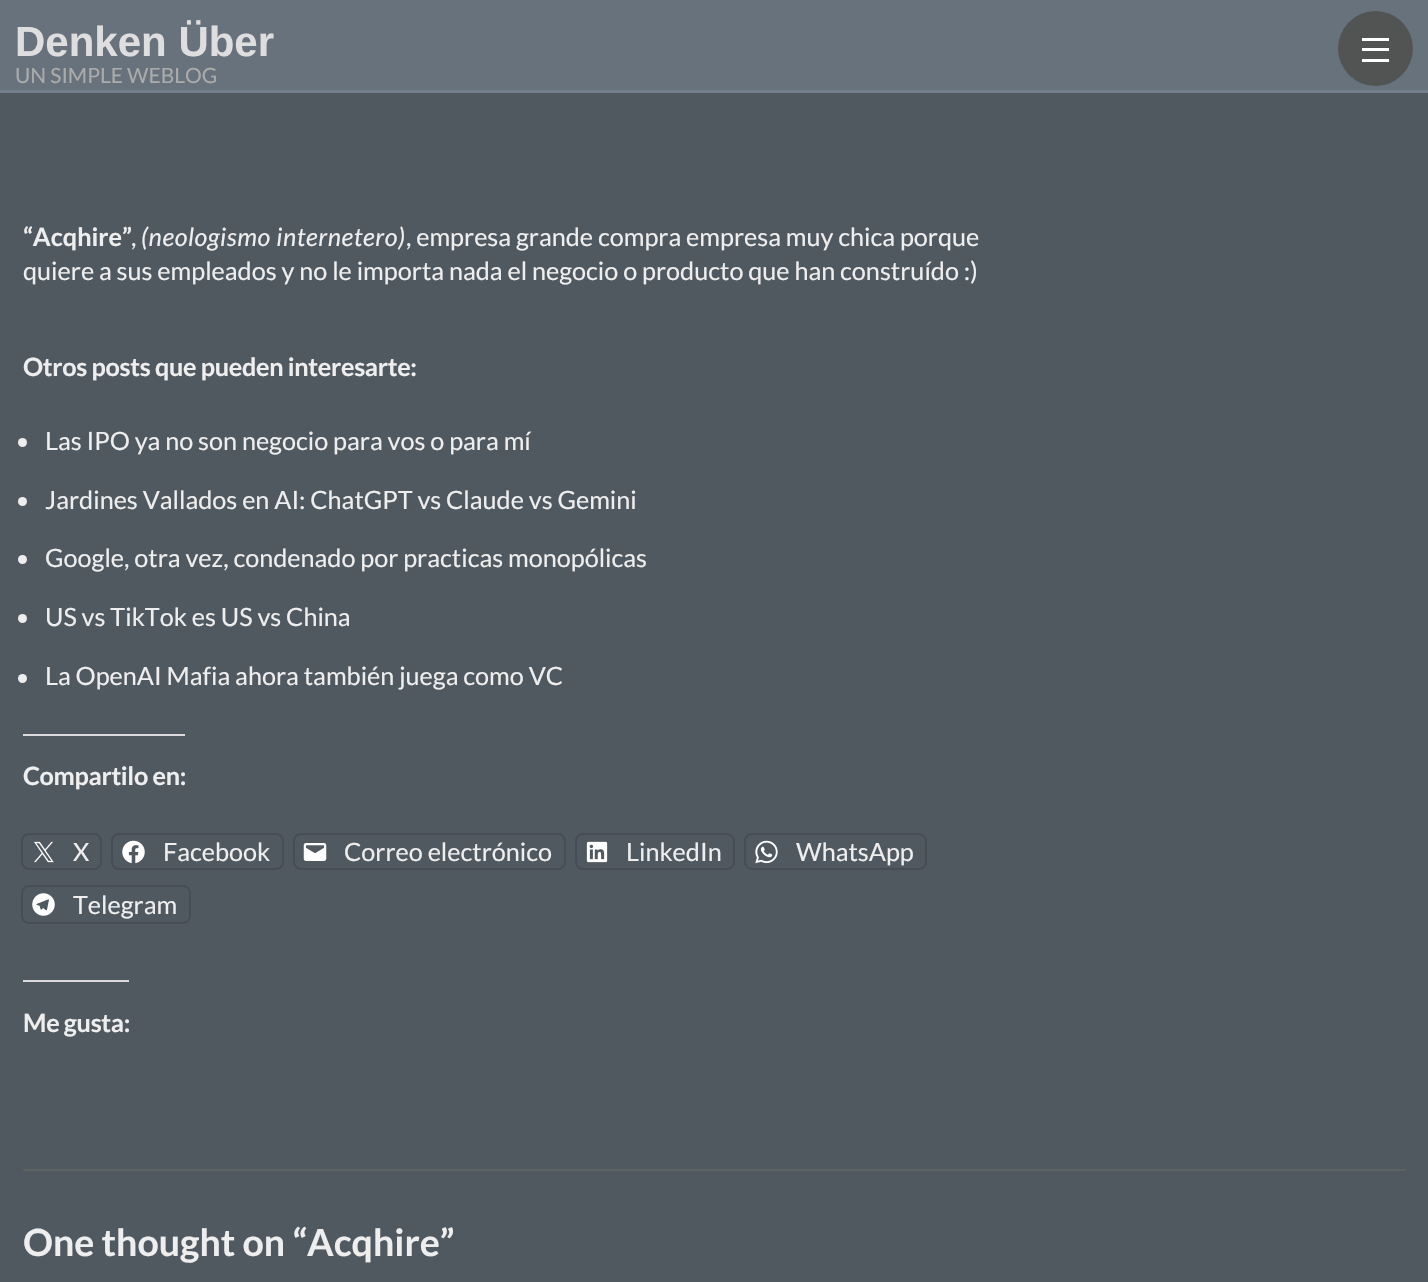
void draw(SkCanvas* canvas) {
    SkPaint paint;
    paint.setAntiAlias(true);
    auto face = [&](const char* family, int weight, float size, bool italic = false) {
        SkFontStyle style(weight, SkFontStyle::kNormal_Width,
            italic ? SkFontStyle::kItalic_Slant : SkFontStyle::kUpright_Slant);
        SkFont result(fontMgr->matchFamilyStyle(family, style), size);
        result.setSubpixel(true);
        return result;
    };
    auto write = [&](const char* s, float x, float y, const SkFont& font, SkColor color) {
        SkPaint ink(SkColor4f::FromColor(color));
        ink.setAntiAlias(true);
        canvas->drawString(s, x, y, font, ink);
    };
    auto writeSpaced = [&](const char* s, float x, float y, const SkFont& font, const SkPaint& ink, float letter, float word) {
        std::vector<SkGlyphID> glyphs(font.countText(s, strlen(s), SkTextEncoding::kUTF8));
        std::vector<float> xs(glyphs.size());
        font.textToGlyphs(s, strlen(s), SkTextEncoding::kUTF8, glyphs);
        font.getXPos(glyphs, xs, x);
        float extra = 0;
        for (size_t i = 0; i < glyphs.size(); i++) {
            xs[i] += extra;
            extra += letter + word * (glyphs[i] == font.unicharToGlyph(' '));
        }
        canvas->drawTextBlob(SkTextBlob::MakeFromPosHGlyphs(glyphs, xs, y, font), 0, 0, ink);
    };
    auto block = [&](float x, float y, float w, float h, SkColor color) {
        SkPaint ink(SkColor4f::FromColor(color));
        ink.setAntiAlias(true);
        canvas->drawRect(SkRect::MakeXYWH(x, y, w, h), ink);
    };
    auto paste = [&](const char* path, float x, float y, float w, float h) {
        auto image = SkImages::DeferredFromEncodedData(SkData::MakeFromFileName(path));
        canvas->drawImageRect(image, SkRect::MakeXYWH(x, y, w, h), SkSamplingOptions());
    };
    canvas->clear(SkColorSetRGB(80, 88, 96));
    block(0, 0, 1428, 90, SkColorSetRGB(104, 114, 124));
    block(0, 90, 1428, 3, SkColorSetRGB(115, 127, 138));
    auto kFont1 = face("Liberation Sans", 700, 42);
    write("Denken Über", 15, 56, kFont1, SkColorSetRGB(222, 222, 222));
    auto kFont2 = face("Lato", 400, 21);
    write("UN SIMPLE WEBLOG", 15, 83, kFont2, SkColorSetRGB(171, 171, 171));
    paint.setColor(SkColorSetRGB(81, 84, 83));
    canvas->drawCircle(1375.5f, 48.5f, 37.5f, paint);
    block(1362, 38, 27, 3, SK_ColorWHITE);
    block(1362, 48, 27, 3, SK_ColorWHITE);
    block(1362, 59, 27, 3, SK_ColorWHITE);
    block(23, 1169, 1383, 2, SkColorSetRGB(91, 98, 95));
    auto kFont3 = face("Lato", 700, 25.2f);
    write("“Acqhire”", 23, 246, kFont3, SkColorSetRGB(238, 238, 238));
    auto kFont4 = face("Lato", 400, 25.2f);
    write(",", 131, 246, kFont4, SkColorSetRGB(238, 238, 238));
    auto kFont5 = face("Lato", 400, 25.2f, true);
    paint.setColor(SkColorSetRGB(238, 238, 238));
    writeSpaced("(neologismo internetero)", 141, 246, kFont5, paint, 0.6f, 0);
    write(", empresa grande compra empresa muy chica porque", 406, 246, kFont4, SkColorSetRGB(238, 238, 238));
    write("quiere a sus empleados y no le importa nada el negocio o producto que han construído :)", 23, 280, kFont4, SkColorSetRGB(238, 238, 238));
    writeSpaced("Otros posts que pueden interesarte:", 23, 376, kFont3, paint, -0.3f, 0);
    canvas->drawCircle(22.5f, 442.5f, 4.5f, paint);
    write("Las IPO ya no son negocio para vos o para mí", 45, 450, kFont4, SkColorSetRGB(238, 238, 238));
    canvas->drawCircle(22.5f, 501.5f, 4.5f, paint);
    write("Jardines Vallados en AI: ChatGPT vs Claude vs Gemini", 45, 509, kFont4, SkColorSetRGB(238, 238, 238));
    canvas->drawCircle(22.5f, 559.5f, 4.5f, paint);
    write("Google, otra vez, condenado por practicas monopólicas", 45, 567, kFont4, SkColorSetRGB(238, 238, 238));
    canvas->drawCircle(22.5f, 618.5f, 4.5f, paint);
    write("US vs TikTok es US vs China", 45, 626, kFont4, SkColorSetRGB(238, 238, 238));
    canvas->drawCircle(22.5f, 678.5f, 4.5f, paint);
    write("La OpenAI Mafia ahora también juega como VC", 45, 685, kFont4, SkColorSetRGB(238, 238, 238));
    block(23, 734, 162, 2, SkColorSetRGB(220, 220, 222));
    writeSpaced("Compartilo en:", 23, 785, kFont3, paint, -0.3f, 0);
    paint.setStyle(SkPaint::kStroke_Style);
    paint.setStrokeWidth(2);
    paint.setColor(SkColorSetRGB(70, 77, 84));
    canvas->drawRoundRect(SkRect::MakeXYWH(22, 834, 79, 35), 7, 7, paint);
    paste("pic1.png", 34, 841, 20, 22);
    write("X", 73, 861, kFont4, SkColorSetRGB(238, 238, 238));
    canvas->drawRoundRect(SkRect::MakeXYWH(112, 834, 171, 35), 7, 7, paint);
    paste("pic2.png", 122, 840, 23, 24);
    write("Facebook", 163, 861, kFont4, SkColorSetRGB(238, 238, 238));
    canvas->drawRoundRect(SkRect::MakeXYWH(294, 834, 271, 35), 7, 7, paint);
    paste("pic3.png", 303, 843, 24, 18);
    write("Correo electrónico", 344, 861, kFont4, SkColorSetRGB(238, 238, 238));
    canvas->drawRoundRect(SkRect::MakeXYWH(576, 834, 158, 35), 7, 7, paint);
    paste("pic4.png", 586, 841, 22, 22);
    write("LinkedIn", 626, 861, kFont4, SkColorSetRGB(238, 238, 238));
    canvas->drawRoundRect(SkRect::MakeXYWH(745, 834, 181, 35), 7, 7, paint);
    paste("pic5.png", 755, 840, 23, 24);
    write("WhatsApp", 796, 861, kFont4, SkColorSetRGB(238, 238, 238));
    canvas->drawRoundRect(SkRect::MakeXYWH(22, 886, 168, 37), 7, 7, paint);
    paste("pic6.png", 32, 893, 23, 23);
    write("Telegram", 73, 914, kFont4, SkColorSetRGB(238, 238, 238));
    block(23, 980, 106, 2, SkColorSetRGB(220, 220, 222));
    paint.setStyle(SkPaint::kFill_Style);
    paint.setColor(SkColorSetRGB(238, 238, 238));
    writeSpaced("Me gusta:", 23, 1032, kFont3, paint, -0.3f, 0);
    auto kFont6 = face("Lato", 700, 37.5f);
    write("One thought on “Acqhire”", 23, 1256, kFont6, SkColorSetRGB(238, 238, 238));
}
